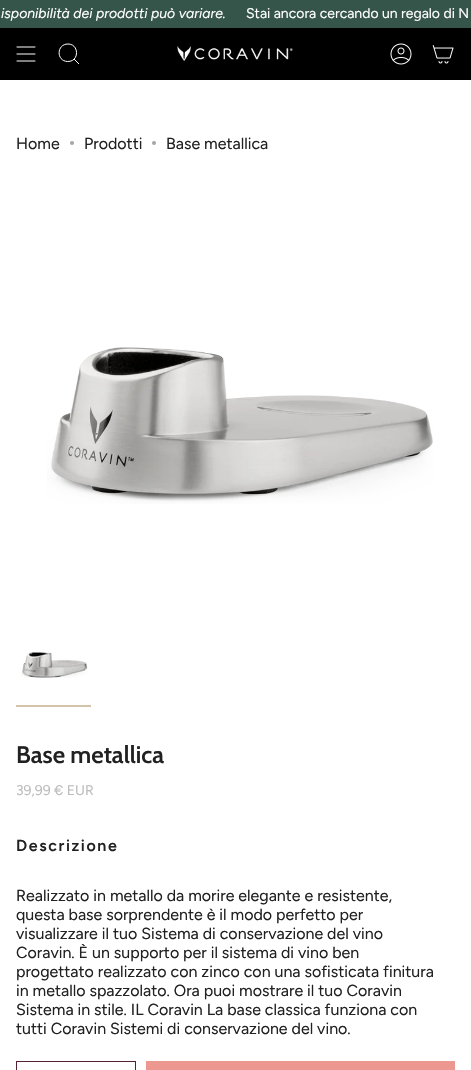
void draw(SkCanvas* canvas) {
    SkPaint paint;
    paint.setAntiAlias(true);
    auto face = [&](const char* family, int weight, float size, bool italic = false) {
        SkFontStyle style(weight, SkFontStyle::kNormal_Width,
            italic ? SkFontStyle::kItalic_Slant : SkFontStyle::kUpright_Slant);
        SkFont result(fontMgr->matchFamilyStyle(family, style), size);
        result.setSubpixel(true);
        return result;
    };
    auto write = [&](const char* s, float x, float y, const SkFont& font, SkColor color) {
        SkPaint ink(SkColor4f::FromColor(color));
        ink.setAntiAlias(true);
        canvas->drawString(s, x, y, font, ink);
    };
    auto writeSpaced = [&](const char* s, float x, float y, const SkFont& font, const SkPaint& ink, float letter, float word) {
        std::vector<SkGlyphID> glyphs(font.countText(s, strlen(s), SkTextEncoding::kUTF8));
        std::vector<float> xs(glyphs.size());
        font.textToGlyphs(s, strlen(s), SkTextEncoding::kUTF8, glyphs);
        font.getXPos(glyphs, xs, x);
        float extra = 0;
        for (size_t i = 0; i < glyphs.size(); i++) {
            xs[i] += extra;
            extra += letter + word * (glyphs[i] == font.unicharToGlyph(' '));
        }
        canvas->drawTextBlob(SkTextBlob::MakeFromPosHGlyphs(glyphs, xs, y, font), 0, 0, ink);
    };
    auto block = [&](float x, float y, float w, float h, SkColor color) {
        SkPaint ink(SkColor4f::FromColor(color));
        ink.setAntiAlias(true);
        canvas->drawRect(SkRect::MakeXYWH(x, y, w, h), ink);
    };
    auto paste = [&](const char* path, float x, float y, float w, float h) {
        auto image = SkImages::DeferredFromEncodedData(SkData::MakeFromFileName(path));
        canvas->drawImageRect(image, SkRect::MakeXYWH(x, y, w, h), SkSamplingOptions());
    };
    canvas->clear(SK_ColorWHITE);
    block(0, 0, 471, 28, SkColorSetRGB(53, 84, 74));
    auto kFont1 = face("Figtree", 400, 14, true);
    write("isponibilità dei prodotti può variare.", 1, 18, kFont1, SK_ColorWHITE);
    auto kFont2 = face("Figtree", 400, 14);
    write("Stai ancora cercando un regalo di N", 246, 18, kFont2, SK_ColorWHITE);
    block(0, 28, 471, 52, SK_ColorBLACK);
    paint.setStyle(SkPaint::kStroke_Style);
    paint.setStrokeWidth(1);
    paint.setStrokeCap(SkPaint::kRound_Cap);
    paint.setStrokeJoin(SkPaint::kRound_Join);
    paint.setColor(SK_ColorWHITE);
    canvas->drawPath(SkPathBuilder().moveTo(17, 47).lineTo(35, 47).moveTo(17, 54).lineTo(35, 54).moveTo(17, 61).lineTo(35, 61).detach(), paint);
    paint.setStrokeCap(SkPaint::kButt_Cap);
    paint.setStrokeJoin(SkPaint::kMiter_Join);
    canvas->drawPath(SkPathBuilder().moveTo(68, 44).cubicTo(79.5f, 44, 79.5f, 62, 67.5f, 61.5f).cubicTo(56, 61, 56.5f, 44, 68, 44).close().moveTo(74, 59).lineTo(79, 64).detach(), paint);
    paste("pic1.png", 177, 46, 116, 15);
    paste("pic2.png", 390, 43, 22, 22);
    paste("pic3.png", 432, 45, 22, 19);
    auto kFont3 = face("Figtree", 400, 16);
    write("Home", 16, 149, kFont3, SkColorSetRGB(33, 33, 33));
    paint.setStyle(SkPaint::kFill_Style);
    paint.setColor(SkColorSetRGB(166, 166, 166));
    canvas->drawCircle(72, 143, 2, paint);
    write("Prodotti", 84, 149, kFont3, SkColorSetRGB(33, 33, 33));
    canvas->drawCircle(154, 143, 2, paint);
    write("Base metallica", 166, 149, kFont3, SkColorSetRGB(33, 33, 33));
    paste("pic4.png", 47, 347, 386, 157);
    paste("pic5.png", 20, 651, 68, 27);
    block(16, 705, 75, 2, SkColorSetRGB(210, 196, 169));
    auto kFont4 = face("Cabin", 600, 24);
    write("Base metallica", 16, 763, kFont4, SkColorSetRGB(33, 33, 33));
    write("39,99 € EUR", 16, 795, kFont2, SkColorSetRGB(188, 188, 188));
    auto kFont5 = face("Figtree", 600, 16);
    paint.setColor(SkColorSetRGB(33, 33, 33));
    writeSpaced("Descrizione", 16, 851, kFont5, paint, 1.6f, 0);
    write("Realizzato in metallo da morire elegante e resistente,", 16, 901, kFont3, SkColorSetRGB(33, 33, 33));
    write("questa base sorprendente è il modo perfetto per", 16, 920, kFont3, SkColorSetRGB(33, 33, 33));
    write("visualizzare il tuo Sistema di conservazione del vino", 16, 939, kFont3, SkColorSetRGB(33, 33, 33));
    write("Coravin. È un supporto per il sistema di vino ben", 16, 958, kFont3, SkColorSetRGB(33, 33, 33));
    write("progettato realizzato con zinco con una sofisticata finitura", 16, 977, kFont3, SkColorSetRGB(33, 33, 33));
    write("in metallo spazzolato. Ora puoi mostrare il tuo Coravin", 16, 996, kFont3, SkColorSetRGB(33, 33, 33));
    write("Sistema in stile. IL Coravin La base classica funziona con", 16, 1015, kFont3, SkColorSetRGB(33, 33, 33));
    write("tutti Coravin Sistemi di conservazione del vino.", 16, 1034, kFont3, SkColorSetRGB(33, 33, 33));
    paint.setStyle(SkPaint::kStroke_Style);
    paint.setColor(SkColorSetRGB(84, 34, 49));
    canvas->drawRect(SkRect::MakeXYWH(16.5f, 1061.5f, 119, 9), paint);
    block(146, 1061, 309, 9, SkColorSetRGB(236, 151, 144));
}
